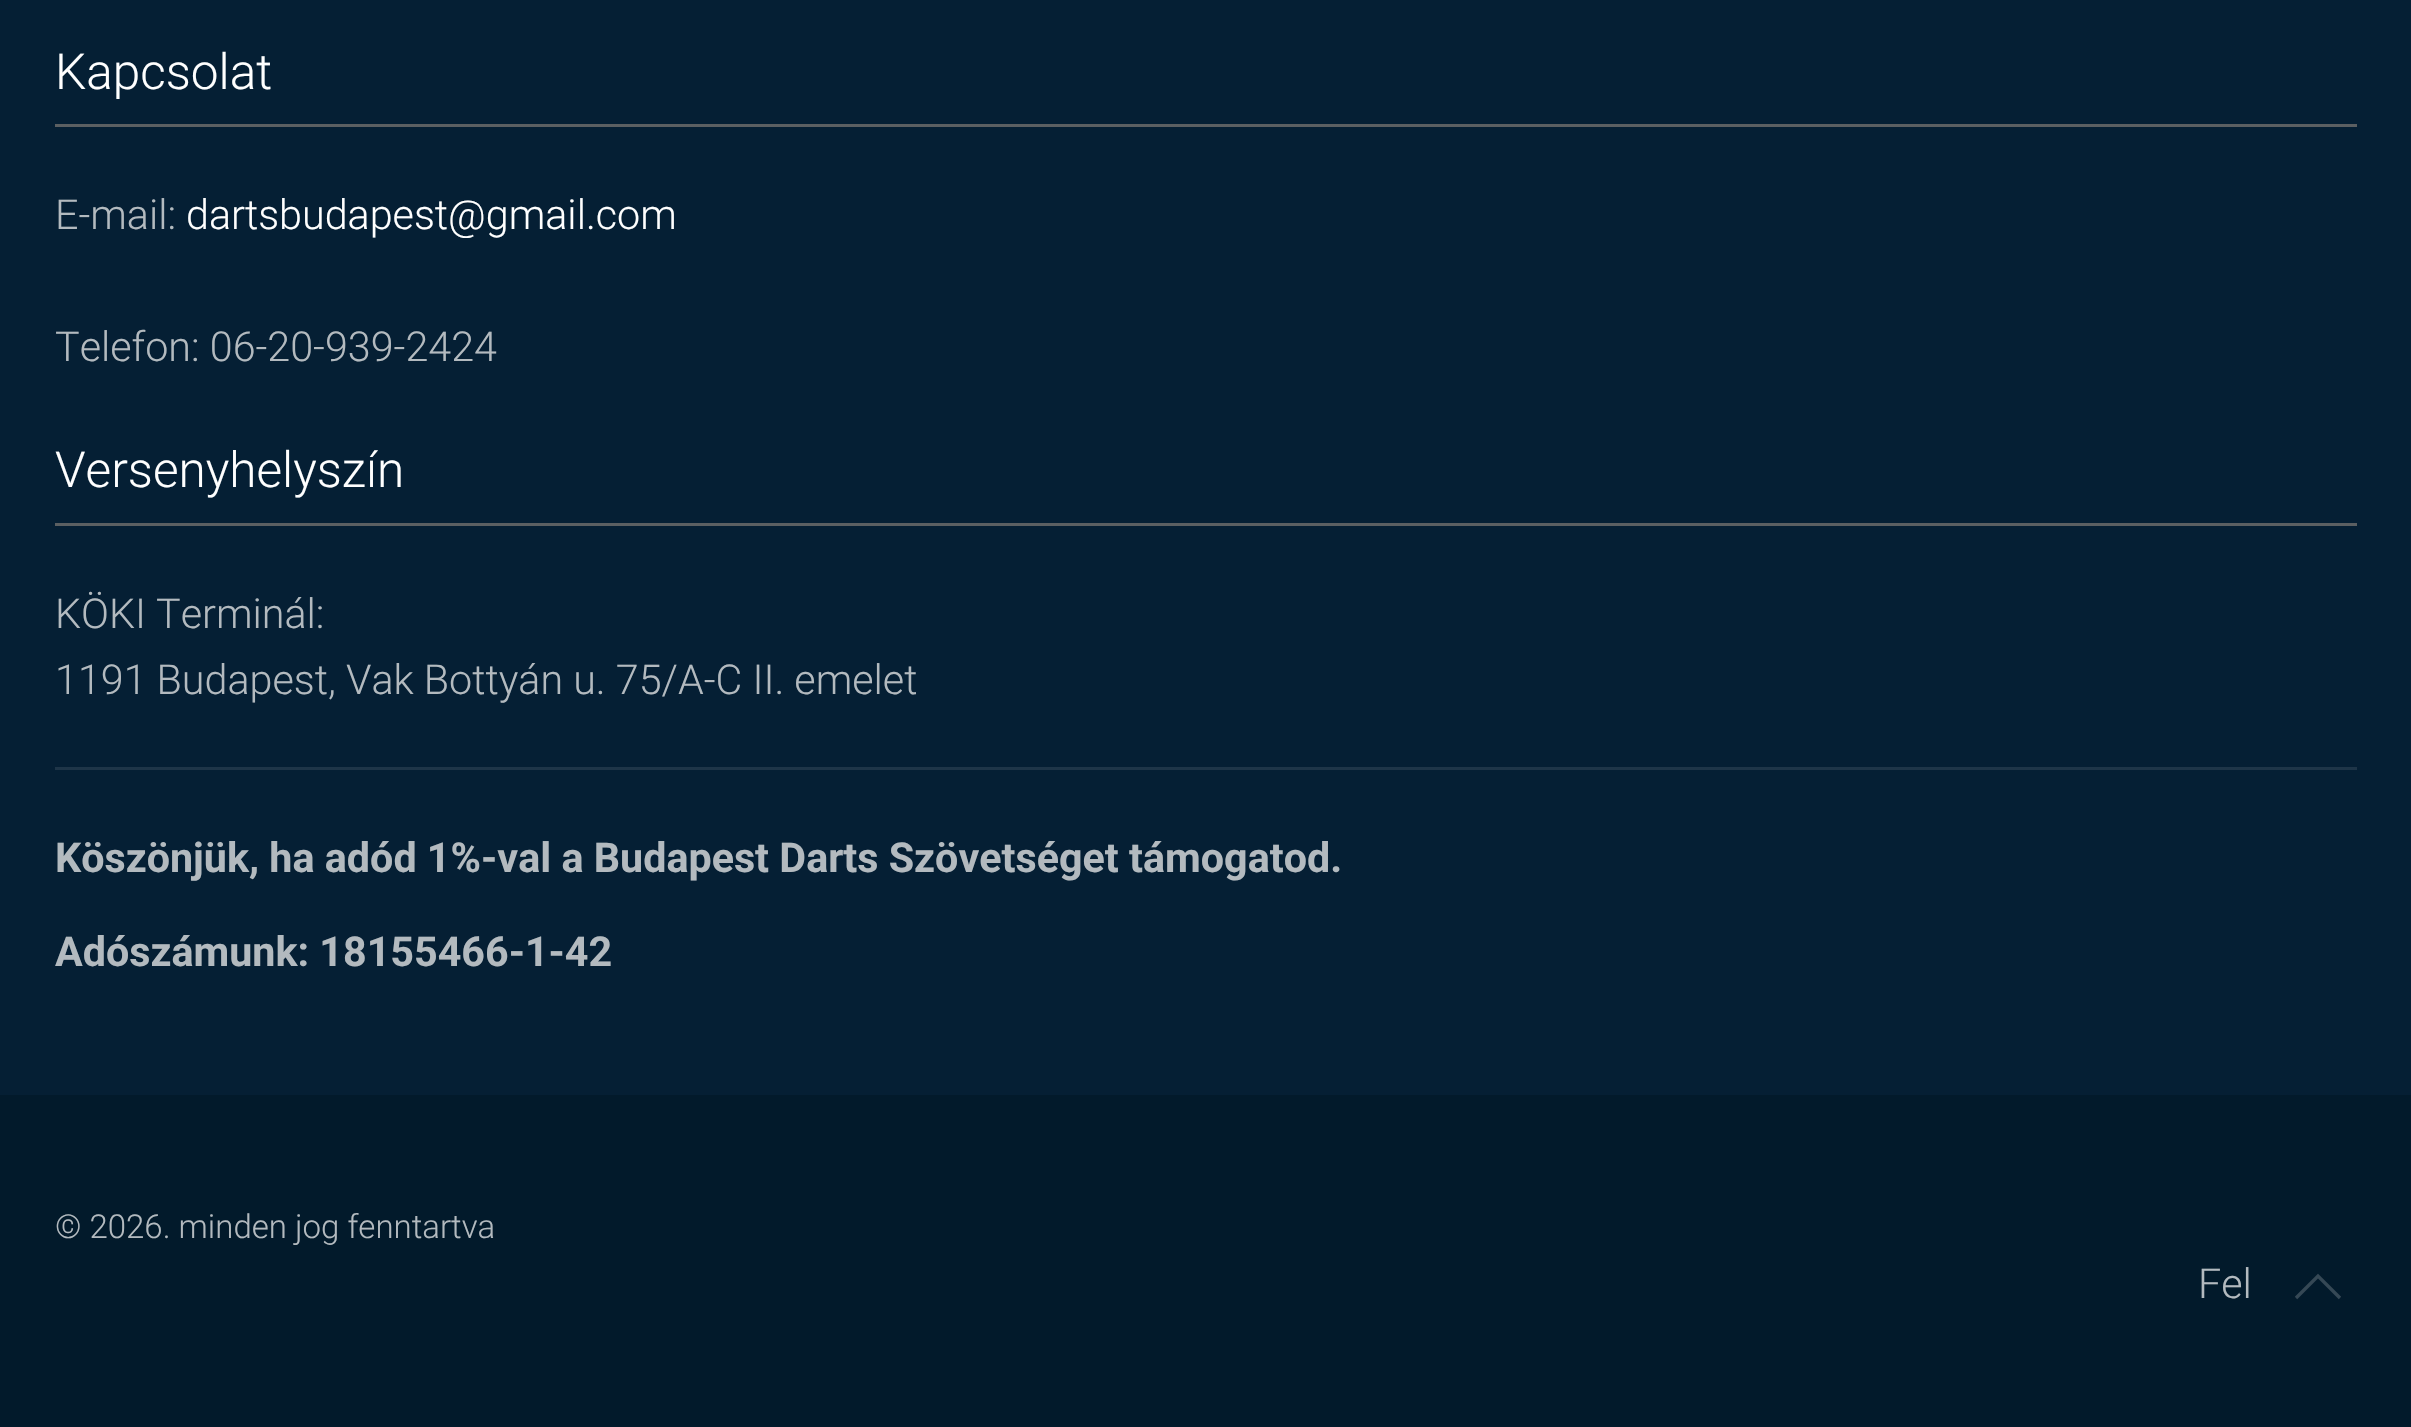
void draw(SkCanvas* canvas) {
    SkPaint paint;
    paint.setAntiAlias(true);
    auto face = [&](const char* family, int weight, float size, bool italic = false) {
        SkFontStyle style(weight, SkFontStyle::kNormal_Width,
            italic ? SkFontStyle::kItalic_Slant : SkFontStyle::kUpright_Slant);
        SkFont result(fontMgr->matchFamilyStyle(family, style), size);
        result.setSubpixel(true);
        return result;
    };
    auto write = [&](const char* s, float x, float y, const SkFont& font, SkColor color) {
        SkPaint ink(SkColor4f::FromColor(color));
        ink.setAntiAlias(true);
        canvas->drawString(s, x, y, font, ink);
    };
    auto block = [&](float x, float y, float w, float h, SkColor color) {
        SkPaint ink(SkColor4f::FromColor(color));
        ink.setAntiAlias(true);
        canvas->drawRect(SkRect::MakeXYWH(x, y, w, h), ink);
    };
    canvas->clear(SkColorSetRGB(5, 31, 52));
    block(55, 124, 2302, 3, SkColorSetRGB(91, 95, 98));
    auto kFont1 = face("Roboto", 300, 49.5f);
    write("Kapcsolat", 55, 89, kFont1, SK_ColorWHITE);
    auto kFont2 = face("Roboto", 300, 41.25f);
    write("E-mail:", 55, 229, kFont2, SkColorSetRGB(179, 186, 191));
    write("dartsbudapest@gmail.com", 186, 229, kFont2, SK_ColorWHITE);
    write("Telefon: 06-20-939-2424", 55, 361, kFont2, SkColorSetRGB(179, 186, 191));
    block(55, 523, 2302, 3, SkColorSetRGB(91, 95, 98));
    write("Versenyhelyszín", 55, 487, kFont1, SK_ColorWHITE);
    write("KÖKI Terminál:", 55, 628, kFont2, SkColorSetRGB(179, 186, 191));
    write("1191 Budapest, Vak Bottyán u. 75/A-C II. emelet", 55, 694, kFont2, SkColorSetRGB(179, 186, 191));
    block(55, 767, 2302, 3, SkColorSetRGB(30, 53, 72));
    auto kFont3 = face("Roboto", 700, 41.25f);
    write("Köszönjük, ha adód 1%-val a Budapest Darts Szövetséget támogatod.", 55, 872, kFont3, SkColorSetRGB(179, 186, 191));
    write("Adószámunk: 18155466-1-42", 55, 966, kFont3, SkColorSetRGB(179, 186, 191));
    block(0, 1095, 2411, 332, SkColorSetRGB(2, 26, 43));
    auto kFont4 = face("Roboto", 300, 33);
    write("© 2026. minden jog fenntartva", 55, 1238, kFont4, SkColorSetRGB(179, 186, 191));
    write("Fel", 2198, 1298, kFont2, SkColorSetRGB(179, 186, 191));
    paint.setStyle(SkPaint::kStroke_Style);
    paint.setStrokeWidth(3.3f);
    paint.setColor(SkColorSetRGB(53, 72, 85));
    canvas->drawPath(SkPathBuilder().moveTo(2296, 1298).lineTo(2318, 1276).lineTo(2340, 1298).detach(), paint);
}
